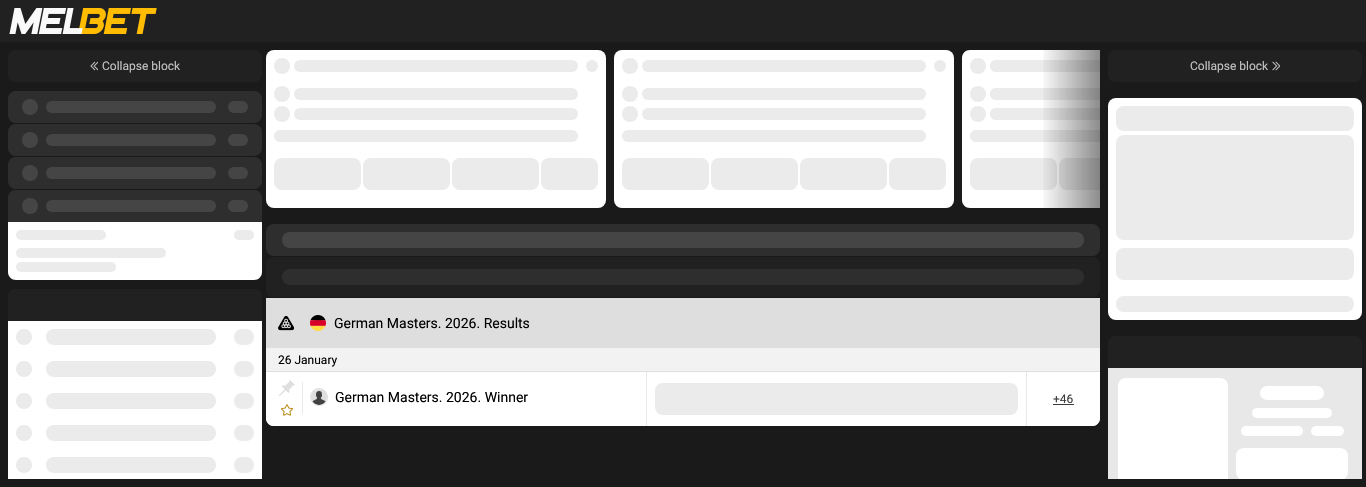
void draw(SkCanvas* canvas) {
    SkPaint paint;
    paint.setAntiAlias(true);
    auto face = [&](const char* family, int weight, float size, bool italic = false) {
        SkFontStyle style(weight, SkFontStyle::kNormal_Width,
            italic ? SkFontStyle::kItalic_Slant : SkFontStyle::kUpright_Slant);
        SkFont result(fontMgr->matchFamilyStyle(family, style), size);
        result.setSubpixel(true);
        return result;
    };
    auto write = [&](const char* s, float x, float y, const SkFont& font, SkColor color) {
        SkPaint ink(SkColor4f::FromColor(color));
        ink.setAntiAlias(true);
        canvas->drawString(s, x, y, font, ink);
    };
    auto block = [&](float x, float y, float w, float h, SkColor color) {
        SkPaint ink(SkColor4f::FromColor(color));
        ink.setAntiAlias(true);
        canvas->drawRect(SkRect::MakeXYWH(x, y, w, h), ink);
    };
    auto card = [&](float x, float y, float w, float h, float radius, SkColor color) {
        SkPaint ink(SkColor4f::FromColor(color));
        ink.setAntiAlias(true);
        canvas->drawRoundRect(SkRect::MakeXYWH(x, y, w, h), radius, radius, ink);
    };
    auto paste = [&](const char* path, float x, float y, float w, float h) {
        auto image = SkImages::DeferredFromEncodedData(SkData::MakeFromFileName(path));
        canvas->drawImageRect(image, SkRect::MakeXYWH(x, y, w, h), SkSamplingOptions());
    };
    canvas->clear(SkColorSetRGB(26, 26, 26));
    block(0, 0, 1366, 42, SkColorSetRGB(33, 33, 33));
    paste("pic1.png", 9, 8, 148, 26);
    card(8, 50, 254, 32, 8, SkColorSetRGB(33, 33, 33));
    paste("pic2.png", 90, 61, 8, 10);
    auto kFont1 = face("Roboto", 400, 12);
    write("Collapse block", 102, 70, kFont1, SkColorSetRGB(194, 194, 194));
    card(8, 91, 254, 32, 8, SkColorSetRGB(46, 46, 46));
    paint.setColor(SkColorSetRGB(69, 69, 69));
    canvas->drawCircle(30, 107, 8, paint);
    card(46, 101, 170, 12, 6, SkColorSetRGB(69, 69, 69));
    card(228, 101, 20, 12, 6, SkColorSetRGB(69, 69, 69));
    card(8, 124, 254, 32, 8, SkColorSetRGB(46, 46, 46));
    canvas->drawCircle(30, 140, 8, paint);
    card(46, 134, 170, 12, 6, SkColorSetRGB(69, 69, 69));
    card(228, 134, 20, 12, 6, SkColorSetRGB(69, 69, 69));
    card(8, 157, 254, 32, 8, SkColorSetRGB(46, 46, 46));
    canvas->drawCircle(30, 173, 8, paint);
    card(46, 167, 170, 12, 6, SkColorSetRGB(69, 69, 69));
    card(228, 167, 20, 12, 6, SkColorSetRGB(69, 69, 69));
    paint.setColor(SkColorSetRGB(46, 46, 46));
    canvas->drawPath(SkPathBuilder().moveTo(16, 190).lineTo(254, 190).cubicTo(258.5f, 190, 262, 193.5f, 262, 198).lineTo(262, 222).lineTo(8, 222).lineTo(8, 198).cubicTo(8, 193.5f, 11.5f, 190, 16, 190).close().detach(), paint);
    paint.setColor(SkColorSetRGB(69, 69, 69));
    canvas->drawCircle(30, 206, 8, paint);
    card(46, 200, 170, 12, 6, SkColorSetRGB(69, 69, 69));
    card(228, 200, 20, 12, 6, SkColorSetRGB(69, 69, 69));
    paint.setColor(SK_ColorWHITE);
    canvas->drawPath(SkPathBuilder().moveTo(8, 222).lineTo(262, 222).lineTo(262, 272).cubicTo(262, 276.5f, 258.5f, 280, 254, 280).lineTo(16, 280).cubicTo(11.5f, 280, 8, 276.5f, 8, 272).close().detach(), paint);
    card(16, 230, 90, 10, 5, SkColorSetRGB(235, 235, 235));
    card(16, 248, 150, 10, 5, SkColorSetRGB(235, 235, 235));
    card(16, 262, 100, 10, 5, SkColorSetRGB(235, 235, 235));
    card(234, 230, 20, 10, 5, SkColorSetRGB(235, 235, 235));
    paint.setColor(SkColorSetRGB(33, 33, 33));
    canvas->drawPath(SkPathBuilder().moveTo(16, 289).lineTo(254, 289).cubicTo(258.5f, 289, 262, 292.5f, 262, 297).lineTo(262, 321).lineTo(8, 321).lineTo(8, 297).cubicTo(8, 292.5f, 11.5f, 289, 16, 289).close().detach(), paint);
    block(8, 321, 254, 158, SK_ColorWHITE);
    paint.setColor(SkColorSetRGB(235, 235, 235));
    canvas->drawCircle(24, 337, 8, paint);
    card(46, 329, 170, 16, 8, SkColorSetRGB(235, 235, 235));
    card(234, 329, 20, 16, 8, SkColorSetRGB(235, 235, 235));
    canvas->drawCircle(24, 369, 8, paint);
    card(46, 361, 170, 16, 8, SkColorSetRGB(235, 235, 235));
    card(234, 361, 20, 16, 8, SkColorSetRGB(235, 235, 235));
    canvas->drawCircle(24, 401, 8, paint);
    card(46, 393, 170, 16, 8, SkColorSetRGB(235, 235, 235));
    card(234, 393, 20, 16, 8, SkColorSetRGB(235, 235, 235));
    canvas->drawCircle(24, 433, 8, paint);
    card(46, 425, 170, 16, 8, SkColorSetRGB(235, 235, 235));
    card(234, 425, 20, 16, 8, SkColorSetRGB(235, 235, 235));
    canvas->drawCircle(24, 465, 8, paint);
    card(46, 457, 170, 16, 8, SkColorSetRGB(235, 235, 235));
    card(234, 457, 20, 16, 8, SkColorSetRGB(235, 235, 235));
    card(1108, 50, 254, 32, 8, SkColorSetRGB(33, 33, 33));
    write("Collapse block", 1190, 70, kFont1, SkColorSetRGB(194, 194, 194));
    paste("pic3.png", 1272, 61, 8, 10);
    card(1108, 98, 254, 222, 8, SK_ColorWHITE);
    card(1116, 106, 238, 25, 8, SkColorSetRGB(235, 235, 235));
    card(1116, 135, 238, 105, 8, SkColorSetRGB(235, 235, 235));
    card(1116, 248, 238, 32, 8, SkColorSetRGB(235, 235, 235));
    card(1116, 296, 238, 16, 8, SkColorSetRGB(235, 235, 235));
    paint.setColor(SkColorSetRGB(33, 33, 33));
    canvas->drawPath(SkPathBuilder().moveTo(1116, 336).lineTo(1354, 336).cubicTo(1358.5f, 336, 1362, 339.5f, 1362, 344).lineTo(1362, 368).lineTo(1108, 368).lineTo(1108, 344).cubicTo(1108, 339.5f, 1111.5f, 336, 1116, 336).close().detach(), paint);
    block(1108, 368, 254, 111, SkColorSetRGB(232, 232, 232));
    paint.setColor(SK_ColorWHITE);
    canvas->drawPath(SkPathBuilder().moveTo(1126, 378).lineTo(1220, 378).cubicTo(1224.5f, 378, 1228, 381.5f, 1228, 386).lineTo(1228, 479).lineTo(1118, 479).lineTo(1118, 386).cubicTo(1118, 381.5f, 1121.5f, 378, 1126, 378).close().detach(), paint);
    card(1260, 386, 64, 14, 7, SK_ColorWHITE);
    card(1252, 408, 80, 10, 5, SK_ColorWHITE);
    card(1241, 426, 62, 10, 5, SK_ColorWHITE);
    card(1311, 426, 33, 10, 5, SK_ColorWHITE);
    canvas->save();
    canvas->clipRect(SkRect::MakeXYWH(1108, 50, 254, 429));
    card(1236, 448, 112, 32, 8, SK_ColorWHITE);
    canvas->restore();
    card(266, 50, 340, 158, 8, SK_ColorWHITE);
    paint.setColor(SkColorSetRGB(235, 235, 235));
    canvas->drawCircle(282, 66, 8, paint);
    card(294, 60, 284, 12, 6, SkColorSetRGB(235, 235, 235));
    canvas->drawCircle(282, 94, 8, paint);
    card(294, 88, 284, 12, 6, SkColorSetRGB(235, 235, 235));
    canvas->drawCircle(282, 114, 8, paint);
    card(294, 108, 284, 12, 6, SkColorSetRGB(235, 235, 235));
    canvas->drawCircle(592, 66, 6, paint);
    card(274, 130, 304, 12, 6, SkColorSetRGB(235, 235, 235));
    card(274, 158, 87, 32, 8, SkColorSetRGB(235, 235, 235));
    card(363, 158, 87, 32, 8, SkColorSetRGB(235, 235, 235));
    card(452, 158, 87, 32, 8, SkColorSetRGB(235, 235, 235));
    card(541, 158, 57, 32, 8, SkColorSetRGB(235, 235, 235));
    card(614, 50, 340, 158, 8, SK_ColorWHITE);
    canvas->drawCircle(630, 66, 8, paint);
    card(642, 60, 284, 12, 6, SkColorSetRGB(235, 235, 235));
    canvas->drawCircle(630, 94, 8, paint);
    card(642, 88, 284, 12, 6, SkColorSetRGB(235, 235, 235));
    canvas->drawCircle(630, 114, 8, paint);
    card(642, 108, 284, 12, 6, SkColorSetRGB(235, 235, 235));
    canvas->drawCircle(940, 66, 6, paint);
    card(622, 130, 304, 12, 6, SkColorSetRGB(235, 235, 235));
    card(622, 158, 87, 32, 8, SkColorSetRGB(235, 235, 235));
    card(711, 158, 87, 32, 8, SkColorSetRGB(235, 235, 235));
    card(800, 158, 87, 32, 8, SkColorSetRGB(235, 235, 235));
    card(889, 158, 57, 32, 8, SkColorSetRGB(235, 235, 235));
    paint.setColor(SK_ColorWHITE);
    canvas->drawPath(SkPathBuilder().moveTo(970, 50).lineTo(1100, 50).lineTo(1100, 208).lineTo(970, 208).cubicTo(965.5f, 208, 962, 204.5f, 962, 200).lineTo(962, 58).cubicTo(962, 53.5f, 965.5f, 50, 970, 50).close().detach(), paint);
    paint.setColor(SkColorSetRGB(235, 235, 235));
    canvas->drawCircle(978, 66, 8, paint);
    canvas->drawPath(SkPathBuilder().moveTo(996, 60).lineTo(1100, 60).lineTo(1100, 72).lineTo(996, 72).cubicTo(992.5f, 72, 990, 69.5f, 990, 66).cubicTo(990, 62.5f, 992.5f, 60, 996, 60).close().detach(), paint);
    canvas->drawCircle(978, 94, 8, paint);
    canvas->drawPath(SkPathBuilder().moveTo(996, 88).lineTo(1100, 88).lineTo(1100, 100).lineTo(996, 100).cubicTo(992.5f, 100, 990, 97.5f, 990, 94).cubicTo(990, 90.5f, 992.5f, 88, 996, 88).close().detach(), paint);
    canvas->drawCircle(978, 114, 8, paint);
    canvas->drawPath(SkPathBuilder().moveTo(996, 108).lineTo(1100, 108).lineTo(1100, 120).lineTo(996, 120).cubicTo(992.5f, 120, 990, 117.5f, 990, 114).cubicTo(990, 110.5f, 992.5f, 108, 996, 108).close().detach(), paint);
    canvas->drawPath(SkPathBuilder().moveTo(976, 130).lineTo(1100, 130).lineTo(1100, 142).lineTo(976, 142).cubicTo(972.5f, 142, 970, 139.5f, 970, 136).cubicTo(970, 132.5f, 972.5f, 130, 976, 130).close().detach(), paint);
    card(970, 158, 87, 32, 8, SkColorSetRGB(235, 235, 235));
    canvas->drawPath(SkPathBuilder().moveTo(1067, 158).lineTo(1100, 158).lineTo(1100, 190).lineTo(1067, 190).cubicTo(1062.5f, 190, 1059, 186.5f, 1059, 182).lineTo(1059, 166).cubicTo(1059, 161.5f, 1062.5f, 158, 1067, 158).close().detach(), paint);
    {
        const SkColor colors[] = {SkColorSetARGB(0, 26, 26, 26), SkColorSetARGB(128, 26, 26, 26)};
        const float stops[] = {0, 1};
        const SkPoint ends[] = {{1040, 133}, {1100, 133}};
        paint.setShader(SkGradientShader::MakeLinear(ends, colors, stops, 2, SkTileMode::kClamp));
        paint.setAlpha(255);
    }
    canvas->drawRect(SkRect::MakeXYWH(1043, 50, 57, 158), paint);
    card(266, 224, 834, 32, 8, SkColorSetRGB(46, 46, 46));
    card(282, 232, 802, 16, 8, SkColorSetRGB(69, 69, 69));
    card(266, 257, 834, 40, 8, SkColorSetRGB(33, 33, 33));
    card(282, 269, 802, 16, 8, SkColorSetRGB(46, 46, 46));
    paint.setShader(nullptr);
    paint.setColor(SK_ColorWHITE);
    canvas->drawPath(SkPathBuilder().moveTo(266, 298).lineTo(1100, 298).lineTo(1100, 418).cubicTo(1100, 422.5f, 1096.5f, 426, 1092, 426).lineTo(274, 426).cubicTo(269.5f, 426, 266, 422.5f, 266, 418).close().detach(), paint);
    block(266, 298, 361, 50, SkColorSetRGB(222, 222, 222));
    paste("pic4.png", 278, 315, 16, 16);
    paste("pic5.png", 310, 315, 16, 16);
    auto kFont2 = face("Roboto", 400, 14);
    write("German Masters. 2026. Results", 334, 328, kFont2, SK_ColorBLACK);
    block(627, 298, 473, 50, SkColorSetRGB(222, 222, 222));
    block(266, 348, 834, 23, SkColorSetRGB(242, 242, 242));
    block(266, 371, 834, 1, SkColorSetRGB(222, 222, 222));
    write("26 January", 278, 364, kFont1, SK_ColorBLACK);
    canvas->drawPath(SkPathBuilder().moveTo(266, 372).lineTo(646, 372).lineTo(646, 426).lineTo(274, 426).cubicTo(269.5f, 426, 266, 422.5f, 266, 418).close().detach(), paint);
    paste("pic6.png", 278, 380, 17, 16);
    block(302, 382, 1, 32, SkColorSetRGB(232, 232, 232));
    paste("pic7.png", 281, 404, 12, 12);
    paint.setStyle(SkPaint::kStroke_Style);
    paint.setStrokeWidth(1);
    paint.setColor(SkColorSetRGB(222, 222, 222));
    canvas->drawCircle(319, 397, 8.5f, paint);
    paint.setStyle(SkPaint::kFill_Style);
    canvas->drawCircle(319, 397, 8, paint);
    paste("pic8.png", 312, 391, 14, 14);
    write("German Masters. 2026. Winner", 335, 402, kFont2, SK_ColorBLACK);
    block(646, 372, 1, 54, SkColorSetRGB(232, 232, 232));
    card(655, 383, 363, 32, 8, SkColorSetRGB(235, 235, 235));
    paint.setColor(SK_ColorWHITE);
    canvas->drawPath(SkPathBuilder().moveTo(1026, 372).lineTo(1100, 372).lineTo(1100, 418).cubicTo(1100, 422.5f, 1096.5f, 426, 1092, 426).lineTo(1026, 426).close().detach(), paint);
    block(1026, 372, 1, 54, SkColorSetRGB(232, 232, 232));
    block(1053, 404, 21, 1, SkColorSetRGB(59, 59, 59));
    write("+46", 1053, 403, kFont1, SkColorSetRGB(59, 59, 59));
}
